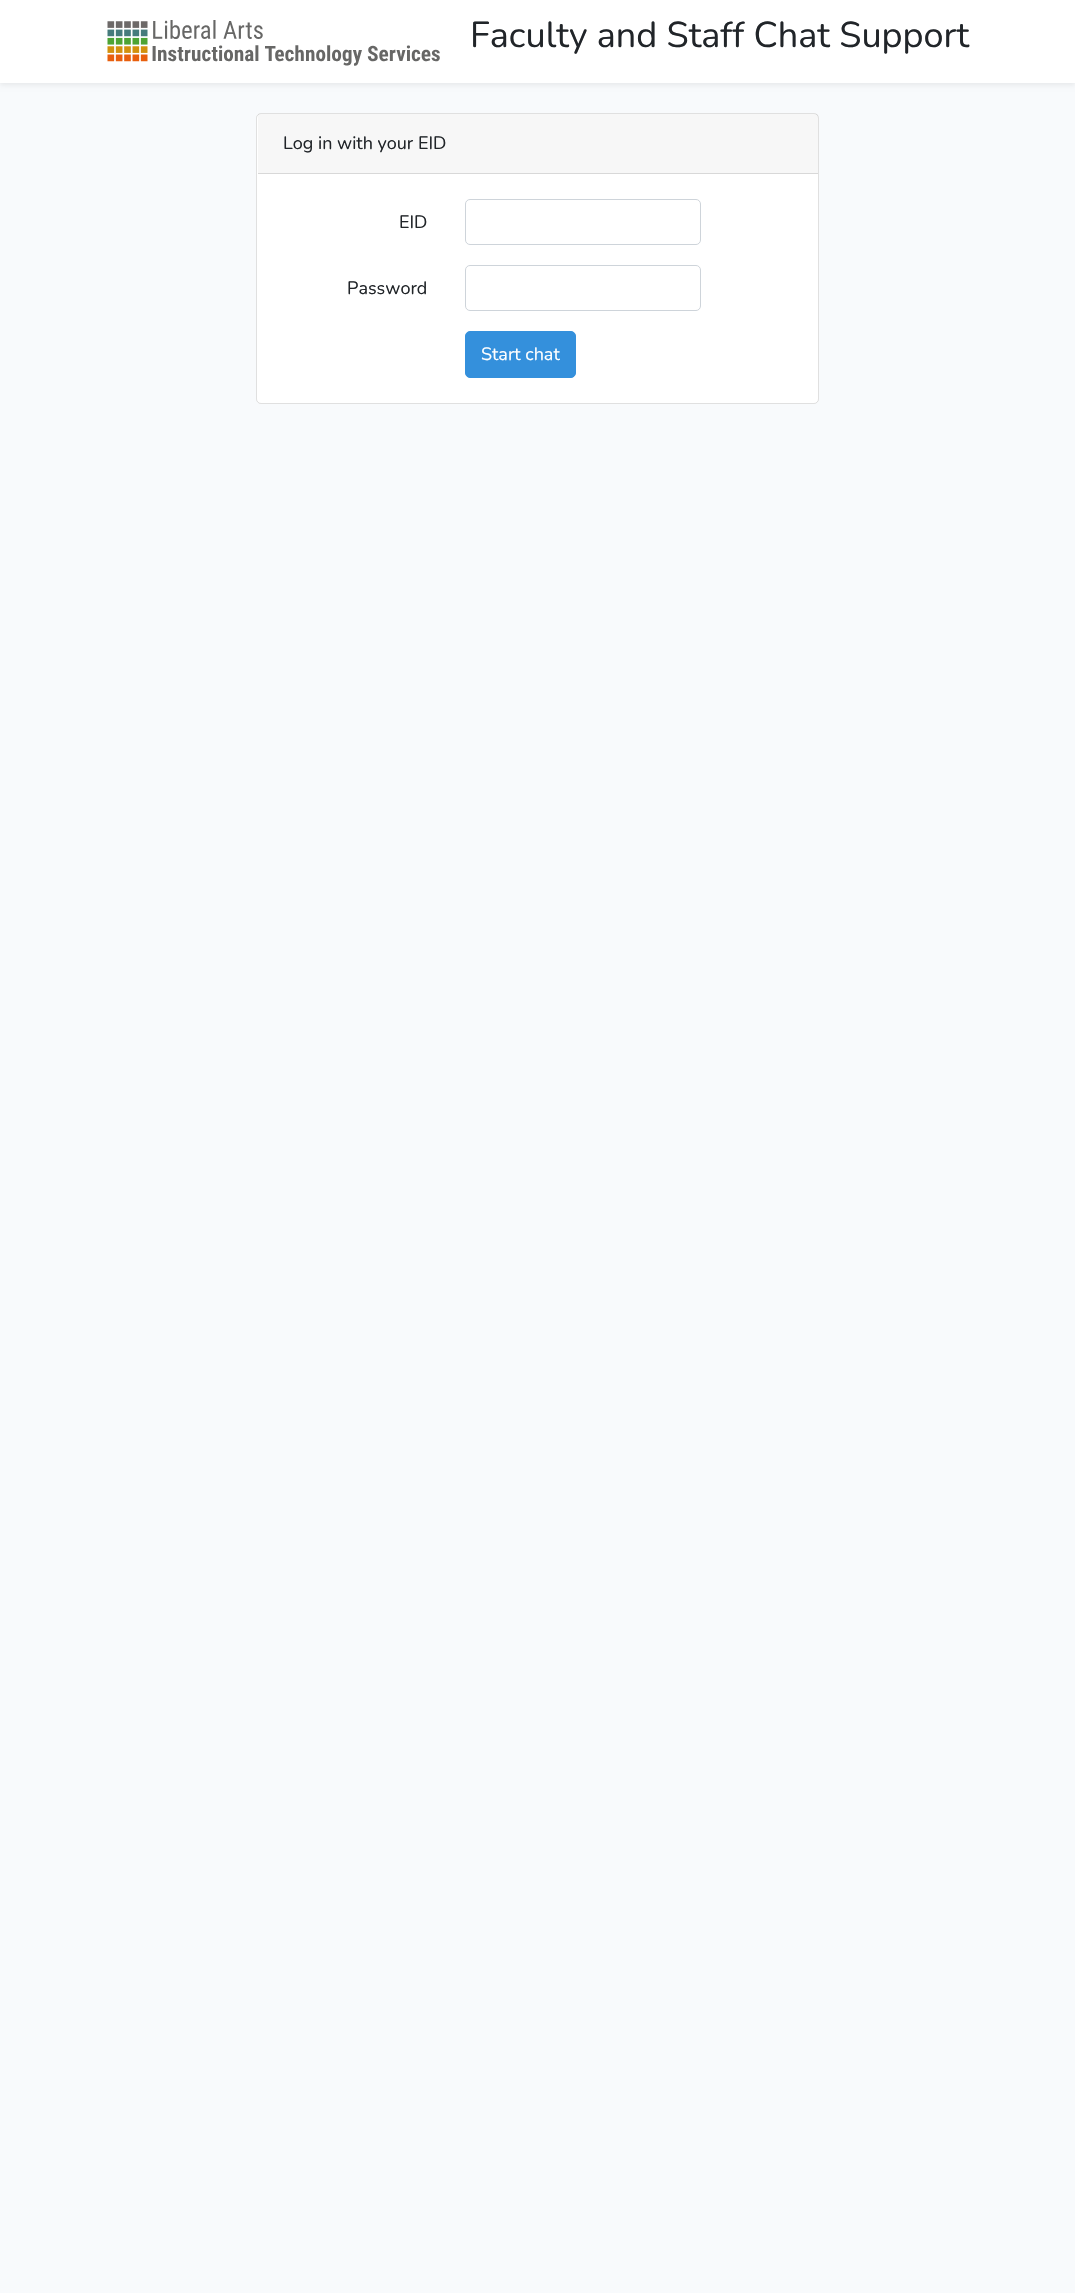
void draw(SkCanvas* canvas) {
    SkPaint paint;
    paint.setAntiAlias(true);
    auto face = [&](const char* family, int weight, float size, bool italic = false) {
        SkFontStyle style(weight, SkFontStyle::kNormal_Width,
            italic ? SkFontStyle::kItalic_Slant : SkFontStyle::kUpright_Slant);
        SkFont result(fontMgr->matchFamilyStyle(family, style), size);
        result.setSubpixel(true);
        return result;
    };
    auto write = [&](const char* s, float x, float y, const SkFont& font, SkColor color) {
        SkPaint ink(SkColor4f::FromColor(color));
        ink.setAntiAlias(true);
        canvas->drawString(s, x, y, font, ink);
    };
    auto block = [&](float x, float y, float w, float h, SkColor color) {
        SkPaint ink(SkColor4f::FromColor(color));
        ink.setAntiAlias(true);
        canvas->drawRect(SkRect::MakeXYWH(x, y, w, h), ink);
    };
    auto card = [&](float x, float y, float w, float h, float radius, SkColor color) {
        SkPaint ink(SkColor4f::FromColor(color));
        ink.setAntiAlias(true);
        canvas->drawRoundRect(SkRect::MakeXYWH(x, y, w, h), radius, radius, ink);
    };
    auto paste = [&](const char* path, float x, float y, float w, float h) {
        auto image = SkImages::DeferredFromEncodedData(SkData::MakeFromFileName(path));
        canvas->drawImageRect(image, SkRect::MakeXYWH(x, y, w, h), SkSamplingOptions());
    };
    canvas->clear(SkColorSetRGB(248, 250, 252));
    paint.setColor(SkColorSetARGB(18, 0, 0, 0));
    paint.setMaskFilter(SkMaskFilter::MakeBlur(kNormal_SkBlurStyle, 2.5f));
    canvas->drawRect(SkRect::MakeXYWH(0, 3, 1075, 82), paint);
    paint.setMaskFilter(nullptr);
    block(0, 0, 1075, 83, SK_ColorWHITE);
    paste("pic1.png", 107, 20, 333, 46);
    auto kFont1 = face("Nunito", 200, 36);
    write("Faculty and Staff Chat Support", 470, 47, kFont1, SkColorSetRGB(33, 37, 41));
    card(256, 113, 563, 291, 5, SK_ColorWHITE);
    paint.setStyle(SkPaint::kStroke_Style);
    paint.setStrokeWidth(1);
    paint.setColor(SkColorSetARGB(31, 0, 0, 0));
    canvas->drawRoundRect(SkRect::MakeXYWH(256.5f, 113.5f, 562, 290), 4.5f, 4.5f, paint);
    block(258, 114, 560, 59, SkColorSetARGB(8, 0, 0, 0));
    block(258, 173, 560, 1, SkColorSetRGB(216, 216, 216));
    auto kFont2 = face("Nunito", 200, 18);
    write("Log in with your EID", 283, 149, kFont2, SkColorSetRGB(33, 37, 41));
    write("EID", 399, 228, kFont2, SkColorSetRGB(33, 37, 41));
    paint.setColor(SkColorSetRGB(206, 212, 218));
    canvas->drawRoundRect(SkRect::MakeXYWH(465.5f, 199.5f, 235, 45), 4.5f, 4.5f, paint);
    write("Password", 347, 294, kFont2, SkColorSetRGB(33, 37, 41));
    canvas->drawRoundRect(SkRect::MakeXYWH(465.5f, 265.5f, 235, 45), 4.5f, 4.5f, paint);
    paint.setStyle(SkPaint::kFill_Style);
    paint.setColor(SkColorSetRGB(52, 144, 220));
    canvas->drawRoundRect(SkRect::MakeXYWH(465.5f, 331.5f, 110, 46), 4.5f, 4.5f, paint);
    paint.setStyle(SkPaint::kStroke_Style);
    canvas->drawRoundRect(SkRect::MakeXYWH(465.5f, 331.5f, 110, 46), 4.5f, 4.5f, paint);
    write("Start chat", 481, 360, kFont2, SK_ColorWHITE);
}
